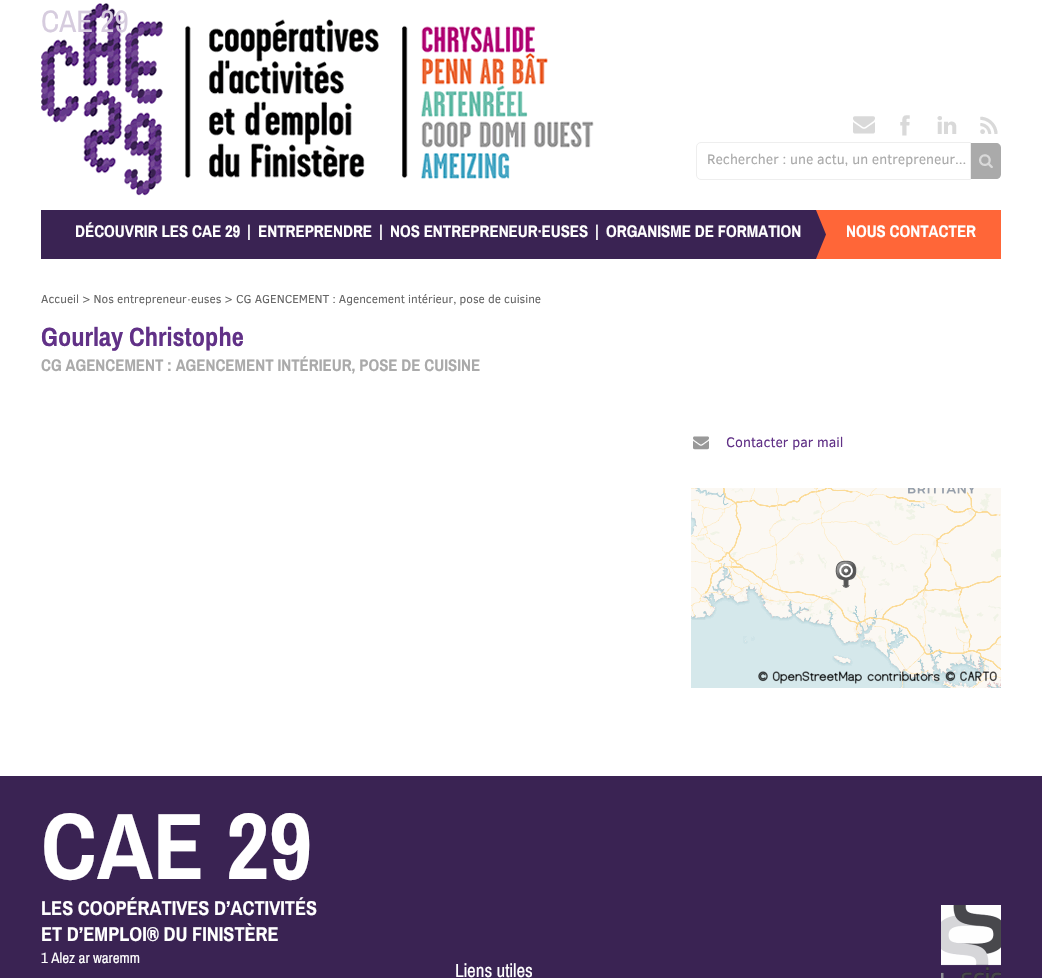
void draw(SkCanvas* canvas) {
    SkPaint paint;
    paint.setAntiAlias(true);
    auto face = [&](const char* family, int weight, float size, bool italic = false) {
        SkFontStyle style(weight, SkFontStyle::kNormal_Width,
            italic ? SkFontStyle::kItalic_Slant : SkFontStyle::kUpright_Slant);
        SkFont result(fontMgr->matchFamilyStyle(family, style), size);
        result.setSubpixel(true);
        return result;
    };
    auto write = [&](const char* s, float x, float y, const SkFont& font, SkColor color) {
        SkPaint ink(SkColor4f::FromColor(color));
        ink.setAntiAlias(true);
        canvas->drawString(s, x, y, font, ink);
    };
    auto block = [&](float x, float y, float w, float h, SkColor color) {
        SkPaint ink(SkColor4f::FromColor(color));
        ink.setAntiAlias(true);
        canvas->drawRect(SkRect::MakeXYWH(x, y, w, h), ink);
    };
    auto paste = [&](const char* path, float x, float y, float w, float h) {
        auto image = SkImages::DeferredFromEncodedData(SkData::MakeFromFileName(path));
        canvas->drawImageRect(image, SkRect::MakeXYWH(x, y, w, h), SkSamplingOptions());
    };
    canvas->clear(SK_ColorWHITE);
    paste("pic1.png", 41, 3, 553, 193);
    auto kFont1 = face("Archivo Narrow", 400, 31);
    write("CAE 29", 41, 32, kFont1, SkColorSetRGB(214, 204, 222));
    paste("pic2.png", 853, 116, 22, 18);
    paste("pic3.png", 900, 115, 10, 21);
    paste("pic4.png", 937, 116, 20, 18);
    paste("pic5.png", 980, 116, 18, 18);
    paint.setStyle(SkPaint::kStroke_Style);
    paint.setStrokeWidth(1);
    paint.setColor(SkColorSetRGB(238, 238, 238));
    canvas->drawPath(SkPathBuilder().moveTo(701, 142.5f).lineTo(970.5f, 142.5f).lineTo(970.5f, 179.5f).lineTo(701, 179.5f).cubicTo(698.5f, 179.5f, 696.5f, 177.5f, 696.5f, 175).lineTo(696.5f, 147).cubicTo(696.5f, 144.5f, 698.5f, 142.5f, 701, 142.5f).close().detach(), paint);
    paint.setStyle(SkPaint::kFill_Style);
    paint.setColor(SkColorSetRGB(170, 170, 170));
    canvas->drawPath(SkPathBuilder().moveTo(971, 143).lineTo(996, 143).cubicTo(999, 143, 1001, 145, 1001, 148).lineTo(1001, 174).cubicTo(1001, 177, 999, 179, 996, 179).lineTo(971, 179).close().detach(), paint);
    paste("pic6.png", 979, 154, 14, 14);
    auto kFont2 = face("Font", 400, 14);
    write("Rechercher : une actu, un entrepreneur...", 707, 164, kFont2, SkColorSetRGB(170, 170, 170));
    block(41, 210, 775, 49, SkColorSetRGB(58, 35, 83));
    paste("pic7.png", 816, 210, 185, 49);
    auto kFont3 = face("Archivo Narrow", 700, 16.8f);
    write("DÉCOUVRIR LES CAE 29", 75, 237, kFont3, SK_ColorWHITE);
    write("|", 247, 237, kFont3, SK_ColorWHITE);
    write("ENTREPRENDRE", 258, 237, kFont3, SK_ColorWHITE);
    write("|", 379, 237, kFont3, SK_ColorWHITE);
    write("NOS ENTREPRENEUR·EUSES", 390, 237, kFont3, SK_ColorWHITE);
    write("|", 595, 237, kFont3, SK_ColorWHITE);
    write("ORGANISME DE FORMATION", 606, 237, kFont3, SK_ColorWHITE);
    write("NOUS CONTACTER", 846, 237, kFont3, SK_ColorWHITE);
    auto kFont4 = face("Font", 400, 11.75f);
    write("Accueil > Nos entrepreneur", 41, 303, kFont4, SkColorSetRGB(102, 102, 102));
    auto kFont5 = face("Liberation Sans", 400, 11.75f);
    write("·", 187, 303, kFont5, SkColorSetRGB(102, 102, 102));
    write("euses > CG AGENCEMENT : Agencement intérieur, pose de cuisine", 191, 303, kFont4, SkColorSetRGB(102, 102, 102));
    auto kFont6 = face("Archivo Narrow", 700, 26.5f);
    write("Gourlay Christophe", 41, 346, kFont6, SkColorSetRGB(97, 49, 135));
    write("CG AGENCEMENT : AGENCEMENT INTÉRIEUR, POSE DE CUISINE", 41, 371, kFont3, SkColorSetRGB(170, 170, 170));
    paste("pic8.png", 693, 436, 16, 14);
    write("Contacter par mail", 726, 447, kFont2, SkColorSetRGB(97, 49, 135));
    paste("pic9.png", 691, 488, 310, 200);
    block(0, 776, 1042, 202, SkColorSetRGB(58, 35, 83));
    auto kFont7 = face("Archivo Narrow", 700, 94.5f);
    write("CAE 29", 41, 879, kFont7, SK_ColorWHITE);
    auto kFont8 = face("Archivo Narrow", 700, 20.2f);
    write("LES COOPÉRATIVES D’ACTIVITÉS", 41, 915, kFont8, SK_ColorWHITE);
    write("ET D’EMPLOI® DU FINISTÈRE", 41, 941, kFont8, SK_ColorWHITE);
    auto kFont9 = face("Archivo Narrow", 400, 15);
    write("1 Alez ar waremm", 41, 963, kFont9, SK_ColorWHITE);
    auto kFont10 = face("Archivo Narrow", 400, 19);
    write("Liens utiles", 455, 977, kFont10, SK_ColorWHITE);
    paste("pic10.png", 941, 905, 60, 73);
}
